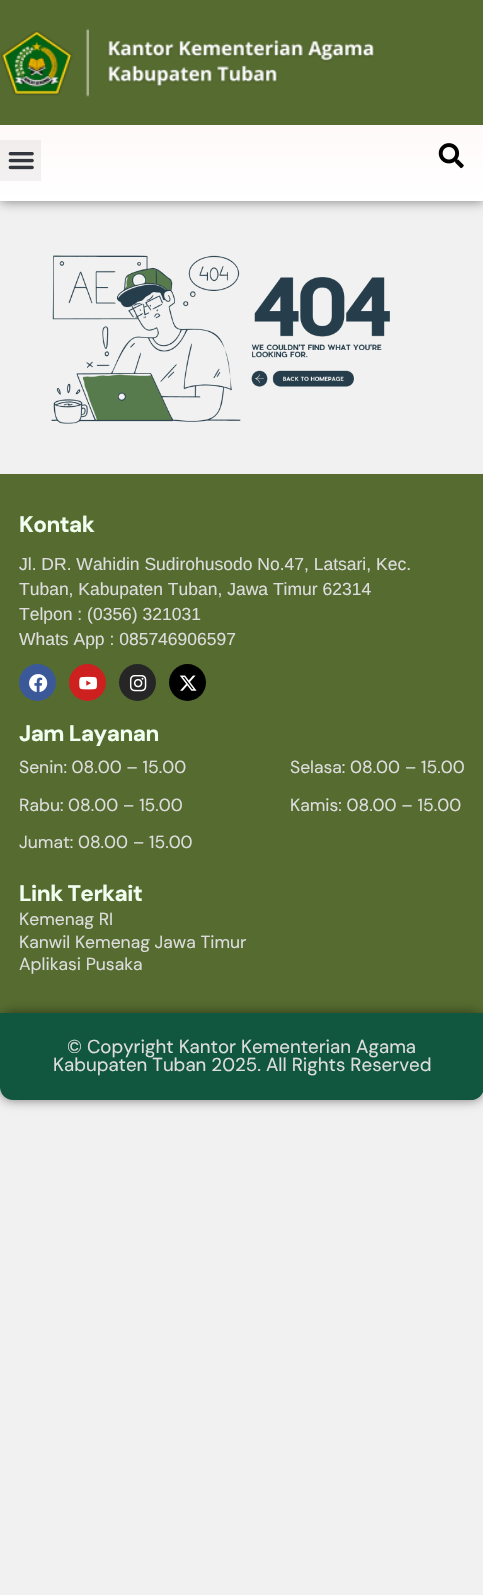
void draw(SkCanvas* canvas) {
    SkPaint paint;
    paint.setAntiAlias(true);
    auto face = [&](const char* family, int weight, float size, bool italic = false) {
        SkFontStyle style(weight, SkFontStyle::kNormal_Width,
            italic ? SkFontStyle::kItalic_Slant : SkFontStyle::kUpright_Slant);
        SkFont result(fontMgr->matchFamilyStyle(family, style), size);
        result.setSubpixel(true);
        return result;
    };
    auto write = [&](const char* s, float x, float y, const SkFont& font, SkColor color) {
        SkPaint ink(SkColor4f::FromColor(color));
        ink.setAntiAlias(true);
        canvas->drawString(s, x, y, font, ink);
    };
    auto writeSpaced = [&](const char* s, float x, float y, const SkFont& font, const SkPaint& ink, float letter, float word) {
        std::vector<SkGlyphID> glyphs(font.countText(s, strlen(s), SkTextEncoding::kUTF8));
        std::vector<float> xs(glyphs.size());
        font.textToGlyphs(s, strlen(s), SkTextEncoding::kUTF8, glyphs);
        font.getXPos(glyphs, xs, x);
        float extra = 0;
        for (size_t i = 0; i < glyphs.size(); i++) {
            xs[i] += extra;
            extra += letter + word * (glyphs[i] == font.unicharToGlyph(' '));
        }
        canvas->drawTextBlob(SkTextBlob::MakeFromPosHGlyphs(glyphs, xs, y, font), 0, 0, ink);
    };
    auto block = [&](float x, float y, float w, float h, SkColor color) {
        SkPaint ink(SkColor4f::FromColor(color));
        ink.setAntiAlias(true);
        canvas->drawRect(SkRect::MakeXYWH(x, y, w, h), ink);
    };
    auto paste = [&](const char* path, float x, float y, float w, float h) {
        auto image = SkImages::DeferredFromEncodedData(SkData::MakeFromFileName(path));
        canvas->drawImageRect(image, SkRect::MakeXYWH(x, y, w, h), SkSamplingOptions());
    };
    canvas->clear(SkColorSetRGB(241, 241, 241));
    paint.setColor(SkColorSetARGB(128, 0, 0, 0));
    paint.setMaskFilter(SkMaskFilter::MakeBlur(kNormal_SkBlurStyle, 6));
    canvas->drawRect(SkRect::MakeXYWH(0, 0, 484, 201), paint);
    paint.setMaskFilter(nullptr);
    block(0, 0, 483, 125, SkColorSetRGB(85, 107, 47));
    paste("pic1.png", 1, 28, 374, 69);
    {
        const SkColor colors[] = {SkColorSetRGB(255, 249, 249), SK_ColorWHITE};
        const float stops[] = {0, 1};
        const SkPoint ends[] = {{242, 125}, {242, 201}};
        paint.setShader(SkGradientShader::MakeLinear(ends, colors, stops, 2, SkTileMode::kClamp));
        paint.setAlpha(255);
    }
    canvas->drawRect(SkRect::MakeXYWH(0, 125, 483, 76), paint);
    block(0, 140, 41, 41, SkColorSetARGB(13, 0, 0, 0));
    paste("pic2.png", 8, 152, 26, 18);
    paste("pic3.png", 438, 143, 26, 26);
    paste("pic4.png", 51, 255, 339, 169);
    block(0, 474, 483, 539, SkColorSetRGB(85, 107, 47));
    auto kFont1 = face("DM Sans", 700, 22.5f);
    paint.setShader(nullptr);
    paint.setColor(SkColorSetRGB(240, 255, 240));
    writeSpaced("Kontak", 19, 532, kFont1, paint, -0.5f, 0);
    auto kFont2 = face("Liberation Sans", 400, 17.5f);
    write("Jl. DR. Wahidin Sudirohusodo No.47, Latsari, Kec.", 19, 570, kFont2, SkColorSetRGB(221, 221, 221));
    write("Tuban, Kabupaten Tuban, Jawa Timur 62314", 19, 595, kFont2, SkColorSetRGB(221, 221, 221));
    write("Telpon : (0356) 321031", 19, 620, kFont2, SkColorSetRGB(221, 221, 221));
    write("Whats App : 085746906597", 19, 645, kFont2, SkColorSetRGB(221, 221, 221));
    paint.setColor(SkColorSetRGB(59, 89, 152));
    canvas->drawCircle(37.5f, 682.5f, 18.5f, paint);
    paste("pic5.png", 29, 674, 19, 18);
    paint.setColor(SkColorSetRGB(205, 32, 31));
    canvas->drawCircle(87.5f, 682.5f, 18.5f, paint);
    paste("pic6.png", 79, 676, 18, 14);
    paint.setColor(SkColorSetRGB(38, 38, 38));
    canvas->drawCircle(137.5f, 682.5f, 18.5f, paint);
    paste("pic7.png", 129, 675, 18, 17);
    paint.setColor(SK_ColorBLACK);
    canvas->drawCircle(187.5f, 682.5f, 18.5f, paint);
    paste("pic8.png", 179, 675, 18, 16);
    paint.setColor(SkColorSetRGB(240, 255, 240));
    writeSpaced("Jam Layanan", 19, 741, kFont1, paint, -0.5f, 0);
    auto kFont3 = face("DM Sans", 400, 17.5f);
    write("Senin: 08.00 – 15.00", 19, 773, kFont3, SkColorSetRGB(221, 221, 221));
    write("Rabu: 08.00 – 15.00", 19, 811, kFont3, SkColorSetRGB(221, 221, 221));
    write("Jumat: 08.00 – 15.00", 19, 848, kFont3, SkColorSetRGB(221, 221, 221));
    write("Selasa: 08.00 – 15.00", 290, 773, kFont3, SkColorSetRGB(221, 221, 221));
    write("Kamis: 08.00 – 15.00", 290, 811, kFont3, SkColorSetRGB(221, 221, 221));
    writeSpaced("Link Terkait", 19, 901, kFont1, paint, -0.5f, 0);
    write("Kemenag RI", 19, 925, kFont3, SkColorSetRGB(221, 221, 221));
    write("Kanwil Kemenag Jawa Timur", 19, 948, kFont3, SkColorSetRGB(221, 221, 221));
    write("Aplikasi Pusaka", 19, 970, kFont3, SkColorSetRGB(221, 221, 221));
    paint.setColor(SkColorSetARGB(128, 0, 0, 0));
    paint.setMaskFilter(SkMaskFilter::MakeBlur(kNormal_SkBlurStyle, 6));
    canvas->drawRoundRect(SkRect::MakeXYWH(0, 1013, 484, 87), 13, 13, paint);
    paint.setMaskFilter(nullptr);
    paint.setColor(SkColorSetRGB(17, 87, 64));
    canvas->drawPath(SkPathBuilder().moveTo(0, 1013).lineTo(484, 1013).lineTo(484, 1087).cubicTo(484, 1094, 478, 1100, 471, 1100).lineTo(13, 1100).cubicTo(6, 1100, 0, 1094, 0, 1087).close().detach(), paint);
    auto kFont4 = face("DM Sans", 400, 18.75f);
    write("© Copyright Kantor Kementerian Agama", 67, 1053, kFont4, SkColorSetRGB(221, 221, 221));
    write("Kabupaten Tuban 2025. All Rights Reserved", 53, 1071, kFont4, SkColorSetRGB(221, 221, 221));
}
